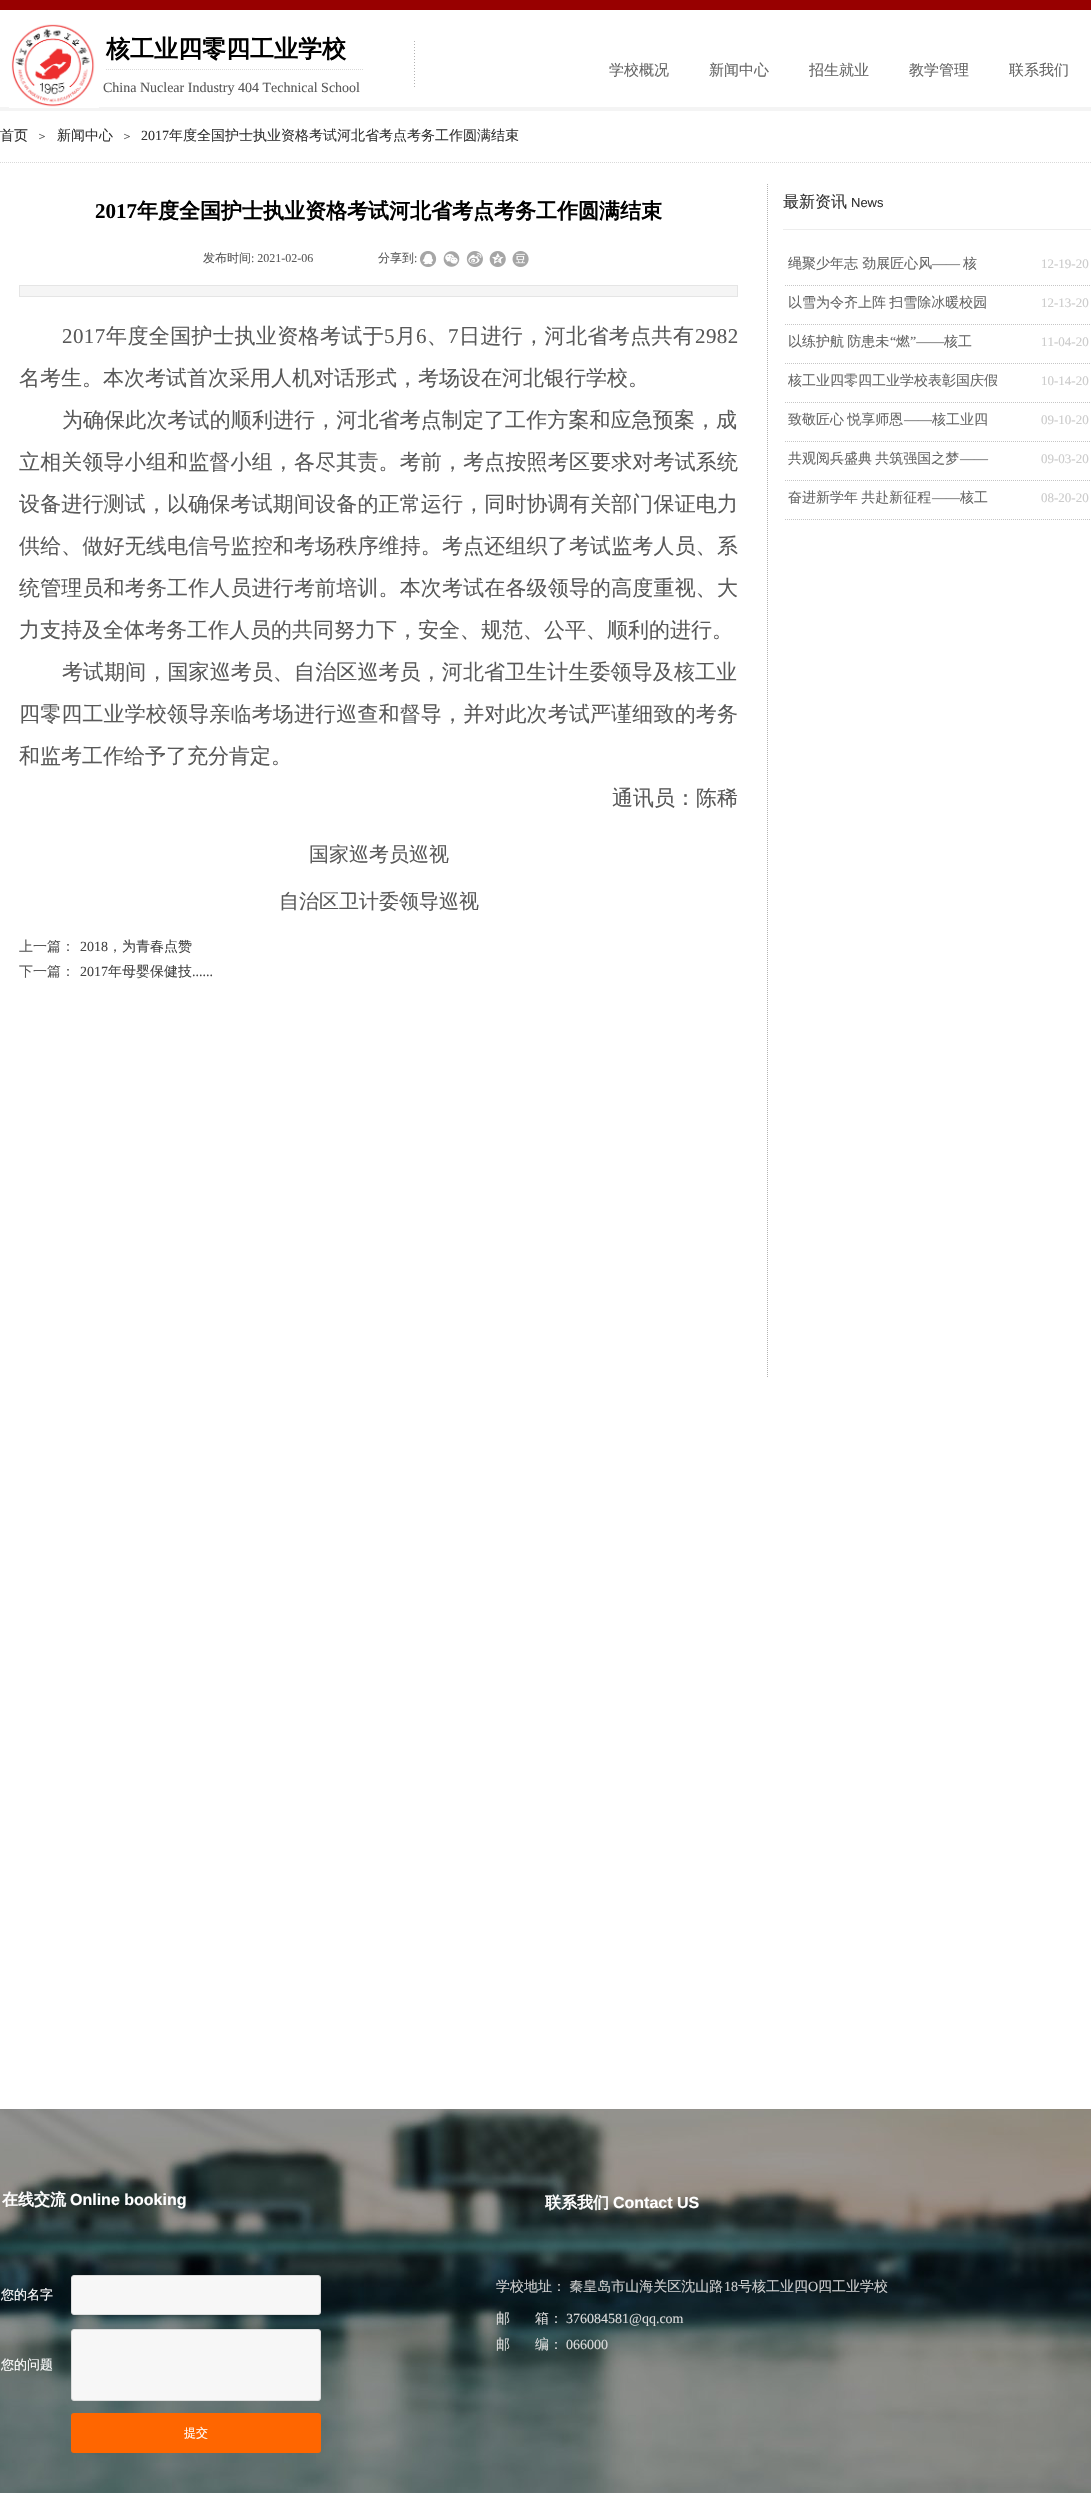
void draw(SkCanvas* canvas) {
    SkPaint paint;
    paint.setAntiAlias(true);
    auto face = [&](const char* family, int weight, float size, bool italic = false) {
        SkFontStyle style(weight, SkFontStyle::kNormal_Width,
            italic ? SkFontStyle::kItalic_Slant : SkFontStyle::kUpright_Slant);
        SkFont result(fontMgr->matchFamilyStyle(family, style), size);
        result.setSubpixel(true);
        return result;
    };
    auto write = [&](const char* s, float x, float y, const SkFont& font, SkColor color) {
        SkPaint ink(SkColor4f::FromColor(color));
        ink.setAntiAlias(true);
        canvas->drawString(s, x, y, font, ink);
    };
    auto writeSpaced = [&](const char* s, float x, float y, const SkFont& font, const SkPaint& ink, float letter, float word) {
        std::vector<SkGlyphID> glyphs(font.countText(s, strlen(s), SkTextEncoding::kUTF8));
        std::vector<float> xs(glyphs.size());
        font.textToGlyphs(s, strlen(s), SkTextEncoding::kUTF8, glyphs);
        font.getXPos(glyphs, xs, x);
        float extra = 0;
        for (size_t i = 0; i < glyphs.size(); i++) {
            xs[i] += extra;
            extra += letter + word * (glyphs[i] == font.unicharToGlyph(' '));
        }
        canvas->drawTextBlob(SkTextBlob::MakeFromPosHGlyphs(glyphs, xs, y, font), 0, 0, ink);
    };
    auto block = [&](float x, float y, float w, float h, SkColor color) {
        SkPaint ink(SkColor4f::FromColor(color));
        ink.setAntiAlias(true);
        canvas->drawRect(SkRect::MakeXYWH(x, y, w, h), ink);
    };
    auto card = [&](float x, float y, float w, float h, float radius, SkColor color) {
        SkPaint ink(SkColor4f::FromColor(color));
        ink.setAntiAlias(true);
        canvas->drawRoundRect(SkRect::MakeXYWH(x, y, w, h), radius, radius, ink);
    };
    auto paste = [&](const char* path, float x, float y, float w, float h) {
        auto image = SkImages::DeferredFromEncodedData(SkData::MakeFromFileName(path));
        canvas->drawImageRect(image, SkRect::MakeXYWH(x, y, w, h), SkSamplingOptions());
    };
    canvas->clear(SK_ColorWHITE);
    block(0, 0, 1091, 10, SkColorSetRGB(152, 0, 0));
    block(0, 107, 1091, 4, SkColorSetRGB(244, 244, 244));
    paste("pic1.png", 9, 24, 90, 84);
    paint.setStyle(SkPaint::kStroke_Style);
    paint.setStrokeWidth(1);
    paint.setColor(SkColorSetRGB(217, 217, 217));
    paint.setPathEffect(SkDashPathEffect::Make({{1, 1}}, 0));
    canvas->drawPath(SkPathBuilder().moveTo(106, 69.5f).lineTo(363, 69.5f).detach(), paint);
    paint.setPathEffect(nullptr);
    auto kFont1 = face("WenQuanYi Zen Hei", 700, 24);
    write("核工业四零四工业学校", 106, 57, kFont1, SK_ColorBLACK);
    paste("pic2.png", 414, 41, 1, 46);
    auto kFont2 = face("WenQuanYi Zen Hei", 500, 15);
    write("学校概况", 609, 75, kFont2, SkColorSetRGB(102, 102, 102));
    write("新闻中心", 709, 75, kFont2, SkColorSetRGB(102, 102, 102));
    write("招生就业", 809, 75, kFont2, SkColorSetRGB(102, 102, 102));
    write("教学管理", 909, 75, kFont2, SkColorSetRGB(102, 102, 102));
    write("联系我们", 1009, 75, kFont2, SkColorSetRGB(102, 102, 102));
    auto kFont3 = face("Liberation Serif", 400, 14);
    write("China Nuclear Industry 404 Technical School", 103, 92, kFont3, SkColorSetRGB(89, 89, 89));
    paint.setPathEffect(SkDashPathEffect::Make({{1, 1}}, 0));
    canvas->drawPath(SkPathBuilder().moveTo(0, 162.5f).lineTo(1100, 162.5f).detach(), paint);
    paint.setPathEffect(nullptr);
    auto kFont4 = face("WenQuanYi Zen Hei", 500, 14);
    write("首页", 0, 140, kFont4, SkColorSetRGB(51, 51, 51));
    auto kFont5 = face("WenQuanYi Zen Hei", 500, 12);
    write("＞", 36, 140, kFont5, SkColorSetRGB(89, 89, 89));
    write("新闻中心", 57, 140, kFont4, SkColorSetRGB(51, 51, 51));
    write("＞", 121, 140, kFont5, SkColorSetRGB(89, 89, 89));
    write("2017", 141, 140, kFont3, SkColorSetRGB(51, 51, 51));
    write("年度全国护士执业资格考试河北省考点考务工作圆满结束", 169, 140, kFont4, SkColorSetRGB(51, 51, 51));
    auto kFont6 = face("Liberation Serif", 700, 21);
    write("2017", 95, 218, kFont6, SK_ColorBLACK);
    auto kFont7 = face("WenQuanYi Zen Hei", 700, 21);
    write("年度全国护士执业资格考试河北省考点考务工作圆满结束", 137, 218, kFont7, SK_ColorBLACK);
    write("发布时间", 203, 262, kFont5, SkColorSetRGB(89, 89, 89));
    auto kFont8 = face("Liberation Serif", 400, 12);
    write(": 2021-02-06", 251, 262, kFont8, SkColorSetRGB(89, 89, 89));
    write("分享到", 378, 262, kFont5, SkColorSetRGB(89, 89, 89));
    write(":", 414, 262, kFont8, SkColorSetRGB(89, 89, 89));
    paste("pic3.png", 420, 251, 17, 16);
    paste("pic4.png", 443, 251, 17, 16);
    paste("pic5.png", 466, 251, 17, 16);
    paste("pic6.png", 489, 251, 17, 16);
    paste("pic7.png", 512, 251, 17, 16);
    paint.setStyle(SkPaint::kFill_Style);
    paint.setColor(SkColorSetRGB(245, 245, 245));
    canvas->drawRect(SkRect::MakeXYWH(19.5f, 285.5f, 718, 11), paint);
    paint.setStyle(SkPaint::kStroke_Style);
    paint.setColor(SkColorSetRGB(229, 229, 229));
    canvas->drawRect(SkRect::MakeXYWH(19.5f, 285.5f, 718, 11), paint);
    auto kFont9 = face("Liberation Serif", 400, 21);
    paint.setStyle(SkPaint::kFill_Style);
    paint.setColor(SkColorSetRGB(89, 89, 89));
    writeSpaced("2017", 62, 343, kFont9, paint, 0.4f, 0);
    auto kFont10 = face("WenQuanYi Zen Hei", 500, 21);
    writeSpaced("年度全国护士执业资格考试于", 106, 343, kFont10, paint, 0.4f, 0);
    writeSpaced("5", 384, 343, kFont9, paint, 0.4f, 0);
    writeSpaced("月", 395, 343, kFont10, paint, 0.4f, 0);
    writeSpaced("6", 416, 343, kFont9, paint, 0.4f, 0);
    writeSpaced("、", 427, 343, kFont10, paint, 0.4f, 0);
    writeSpaced("7", 448, 343, kFont9, paint, 0.4f, 0);
    writeSpaced("日进行，河北省考点共有", 459, 343, kFont10, paint, 0.4f, 0);
    writeSpaced("2982", 695, 343, kFont9, paint, 0.4f, 0);
    write("名考生。本次考试首次采用人机对话形式，考场设在河北银行学校。", 19, 385, kFont10, SkColorSetRGB(89, 89, 89));
    writeSpaced("为确保此次考试的顺利进行，河北省考点制定了工作方案和应急预案，成", 62, 427, kFont10, paint, 0.1f, 0);
    writeSpaced("立相关领导小组和监督小组，各尽其责。考前，考点按照考区要求对考试系统", 19, 469, kFont10, paint, 0.15f, 0);
    writeSpaced("设备进行测试，以确保考试期间设备的正常运行，同时协调有关部门保证电力", 19, 511, kFont10, paint, 0.15f, 0);
    writeSpaced("供给、做好无线电信号监控和考场秩序维持。考点还组织了考试监考人员、系", 19, 553, kFont10, paint, 0.15f, 0);
    writeSpaced("统管理员和考务工作人员进行考前培训。本次考试在各级领导的高度重视、大", 19, 595, kFont10, paint, 0.15f, 0);
    write("力支持及全体考务工作人员的共同努力下，安全、规范、公平、顺利的进行。", 19, 637, kFont10, SkColorSetRGB(89, 89, 89));
    writeSpaced("考试期间，国家巡考员、自治区巡考员，河北省卫生计生委领导及核工业", 62, 679, kFont10, paint, 0.1f, 0);
    writeSpaced("四零四工业学校领导亲临考场进行巡查和督导，并对此次考试严谨细致的考务", 19, 721, kFont10, paint, 0.15f, 0);
    write("和监考工作给予了充分肯定。", 19, 763, kFont10, SkColorSetRGB(89, 89, 89));
    write("通讯员：陈稀", 612, 805, kFont10, SkColorSetRGB(89, 89, 89));
    auto kFont11 = face("WenQuanYi Zen Hei", 500, 20);
    write("国家巡考员巡视", 309, 861, kFont11, SkColorSetRGB(89, 89, 89));
    write("自治区卫计委领导巡视", 279, 908, kFont11, SkColorSetRGB(89, 89, 89));
    write("上一篇：", 19, 951, kFont4, SkColorSetRGB(89, 89, 89));
    write("2018", 80, 951, kFont3, SkColorSetRGB(68, 68, 68));
    write("，为青春点赞", 108, 951, kFont4, SkColorSetRGB(68, 68, 68));
    write("下一篇：", 19, 976, kFont4, SkColorSetRGB(89, 89, 89));
    write("2017", 80, 976, kFont3, SkColorSetRGB(68, 68, 68));
    write("年母婴保健技", 108, 976, kFont4, SkColorSetRGB(68, 68, 68));
    write("......", 192, 976, kFont3, SkColorSetRGB(68, 68, 68));
    paste("pic8.png", 767, 184, 1, 1193);
    block(783, 229, 308, 1, SkColorSetRGB(237, 237, 237));
    auto kFont12 = face("WenQuanYi Zen Hei", 500, 16);
    write("最新资讯", 783, 207, kFont12, SkColorSetRGB(51, 51, 51));
    auto kFont13 = face("Liberation Sans", 400, 13);
    write("News", 851, 207, kFont13, SkColorSetRGB(51, 51, 51));
    write("绳聚少年志 劲展匠心风", 788, 268, kFont4, SkColorSetRGB(102, 102, 102));
    write("——", 932, 268, kFont3, SkColorSetRGB(102, 102, 102));
    write("核", 963, 268, kFont4, SkColorSetRGB(102, 102, 102));
    auto kFont14 = face("Liberation Serif", 400, 13);
    write("12-19-20", 1041, 268, kFont14, SkColorSetRGB(204, 204, 204));
    paint.setStyle(SkPaint::kStroke_Style);
    paint.setColor(SkColorSetRGB(198, 198, 198));
    paint.setPathEffect(SkDashPathEffect::Make({{1, 1}}, 0));
    canvas->drawPath(SkPathBuilder().moveTo(785, 285.5f).lineTo(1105, 285.5f).detach(), paint);
    paint.setPathEffect(nullptr);
    paint.setStyle(SkPaint::kFill_Style);
    paint.setColor(SkColorSetRGB(102, 102, 102));
    writeSpaced("以雪为令齐上阵 扫雪除冰暖校园", 788, 307, kFont4, paint, 0, -1);
    write("12-13-20", 1041, 307, kFont14, SkColorSetRGB(204, 204, 204));
    paint.setStyle(SkPaint::kStroke_Style);
    paint.setColor(SkColorSetRGB(198, 198, 198));
    paint.setPathEffect(SkDashPathEffect::Make({{1, 1}}, 0));
    canvas->drawPath(SkPathBuilder().moveTo(785, 324.5f).lineTo(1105, 324.5f).detach(), paint);
    paint.setPathEffect(nullptr);
    paint.setStyle(SkPaint::kFill_Style);
    paint.setColor(SkColorSetRGB(102, 102, 102));
    writeSpaced("以练护航 防患未", 788, 346, kFont4, paint, 0, -1);
    write("“", 890, 346, kFont3, SkColorSetRGB(102, 102, 102));
    write("燃", 896, 346, kFont4, SkColorSetRGB(102, 102, 102));
    write("”——", 910, 346, kFont3, SkColorSetRGB(102, 102, 102));
    write("核工", 944, 346, kFont4, SkColorSetRGB(102, 102, 102));
    write("11-04-20", 1041, 346, kFont14, SkColorSetRGB(204, 204, 204));
    paint.setStyle(SkPaint::kStroke_Style);
    paint.setColor(SkColorSetRGB(198, 198, 198));
    paint.setPathEffect(SkDashPathEffect::Make({{1, 1}}, 0));
    canvas->drawPath(SkPathBuilder().moveTo(785, 363.5f).lineTo(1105, 363.5f).detach(), paint);
    paint.setPathEffect(nullptr);
    write("核工业四零四工业学校表彰国庆假", 788, 385, kFont4, SkColorSetRGB(102, 102, 102));
    write("10-14-20", 1041, 385, kFont14, SkColorSetRGB(204, 204, 204));
    paint.setPathEffect(SkDashPathEffect::Make({{1, 1}}, 0));
    canvas->drawPath(SkPathBuilder().moveTo(785, 402.5f).lineTo(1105, 402.5f).detach(), paint);
    paint.setPathEffect(nullptr);
    paint.setStyle(SkPaint::kFill_Style);
    paint.setColor(SkColorSetRGB(102, 102, 102));
    writeSpaced("致敬匠心 悦享师恩", 788, 424, kFont4, paint, 0, -1);
    write("——", 904, 424, kFont3, SkColorSetRGB(102, 102, 102));
    write("核工业四", 932, 424, kFont4, SkColorSetRGB(102, 102, 102));
    write("09-10-20", 1041, 424, kFont14, SkColorSetRGB(204, 204, 204));
    paint.setStyle(SkPaint::kStroke_Style);
    paint.setColor(SkColorSetRGB(198, 198, 198));
    paint.setPathEffect(SkDashPathEffect::Make({{1, 1}}, 0));
    canvas->drawPath(SkPathBuilder().moveTo(785, 441.5f).lineTo(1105, 441.5f).detach(), paint);
    paint.setPathEffect(nullptr);
    paint.setStyle(SkPaint::kFill_Style);
    paint.setColor(SkColorSetRGB(102, 102, 102));
    writeSpaced("共观阅兵盛典 共筑强国之梦", 788, 463, kFont4, paint, 0, -1);
    write("——", 960, 463, kFont3, SkColorSetRGB(102, 102, 102));
    write("09-03-20", 1041, 463, kFont14, SkColorSetRGB(204, 204, 204));
    paint.setStyle(SkPaint::kStroke_Style);
    paint.setColor(SkColorSetRGB(198, 198, 198));
    paint.setPathEffect(SkDashPathEffect::Make({{1, 1}}, 0));
    canvas->drawPath(SkPathBuilder().moveTo(785, 480.5f).lineTo(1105, 480.5f).detach(), paint);
    paint.setPathEffect(nullptr);
    paint.setStyle(SkPaint::kFill_Style);
    paint.setColor(SkColorSetRGB(102, 102, 102));
    writeSpaced("奋进新学年 共赴新征程", 788, 502, kFont4, paint, 0, -1);
    write("——", 932, 502, kFont3, SkColorSetRGB(102, 102, 102));
    write("核工", 960, 502, kFont4, SkColorSetRGB(102, 102, 102));
    write("08-20-20", 1041, 502, kFont14, SkColorSetRGB(204, 204, 204));
    paint.setStyle(SkPaint::kStroke_Style);
    paint.setColor(SkColorSetRGB(198, 198, 198));
    paint.setPathEffect(SkDashPathEffect::Make({{1, 1}}, 0));
    canvas->drawPath(SkPathBuilder().moveTo(785, 519.5f).lineTo(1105, 519.5f).detach(), paint);
    paint.setPathEffect(nullptr);
    paste("pic9.png", 0, 2109, 1091, 384);
    auto kFont15 = face("WenQuanYi Zen Hei", 700, 16);
    write("在线交流", 2, 2205, kFont15, SK_ColorWHITE);
    auto kFont16 = face("Liberation Sans", 700, 16);
    write("Online booking", 70, 2205, kFont16, SK_ColorWHITE);
    write("联系我们", 545, 2208, kFont15, SK_ColorWHITE);
    write("Contact US", 613, 2208, kFont16, SK_ColorWHITE);
    auto kFont17 = face("WenQuanYi Zen Hei", 500, 13);
    write("您的名字", 1, 2299, kFont17, SK_ColorWHITE);
    paint.setStyle(SkPaint::kFill_Style);
    paint.setColor(SkColorSetRGB(247, 247, 247));
    canvas->drawRoundRect(SkRect::MakeXYWH(71.5f, 2275.5f, 249, 39), 2.5f, 2.5f, paint);
    paint.setStyle(SkPaint::kStroke_Style);
    paint.setColor(SkColorSetRGB(222, 222, 222));
    canvas->drawRoundRect(SkRect::MakeXYWH(71.5f, 2275.5f, 249, 39), 2.5f, 2.5f, paint);
    write("您的问题", 1, 2369, kFont17, SK_ColorWHITE);
    paint.setStyle(SkPaint::kFill_Style);
    paint.setColor(SkColorSetRGB(247, 247, 247));
    canvas->drawRoundRect(SkRect::MakeXYWH(71.5f, 2329.5f, 249, 71), 2.5f, 2.5f, paint);
    paint.setStyle(SkPaint::kStroke_Style);
    paint.setColor(SkColorSetRGB(222, 222, 222));
    canvas->drawRoundRect(SkRect::MakeXYWH(71.5f, 2329.5f, 249, 71), 2.5f, 2.5f, paint);
    card(71, 2413, 250, 40, 3, SkColorSetRGB(255, 102, 0));
    write("提交", 184, 2437, kFont5, SK_ColorWHITE);
    paint.setStyle(SkPaint::kFill_Style);
    paint.setColor(SkColorSetRGB(204, 204, 204));
    writeSpaced("学校地址： 秦皇岛市山海关区沈山路", 496, 2291, kFont4, paint, 0, -1);
    write("18", 724, 2291, kFont3, SkColorSetRGB(204, 204, 204));
    write("号核工业四", 738, 2291, kFont4, SkColorSetRGB(204, 204, 204));
    write("O", 808, 2291, kFont3, SkColorSetRGB(204, 204, 204));
    write("四工业学校", 818, 2291, kFont4, SkColorSetRGB(204, 204, 204));
    write("邮", 496, 2323, kFont4, SkColorSetRGB(217, 217, 217));
    write("箱：", 535, 2323, kFont4, SkColorSetRGB(217, 217, 217));
    write("376084581@qq.com", 566, 2323, kFont3, SkColorSetRGB(217, 217, 217));
    write("邮", 496, 2349, kFont4, SkColorSetRGB(217, 217, 217));
    write("编：", 535, 2349, kFont4, SkColorSetRGB(217, 217, 217));
    write("066000", 566, 2349, kFont3, SkColorSetRGB(217, 217, 217));
}
